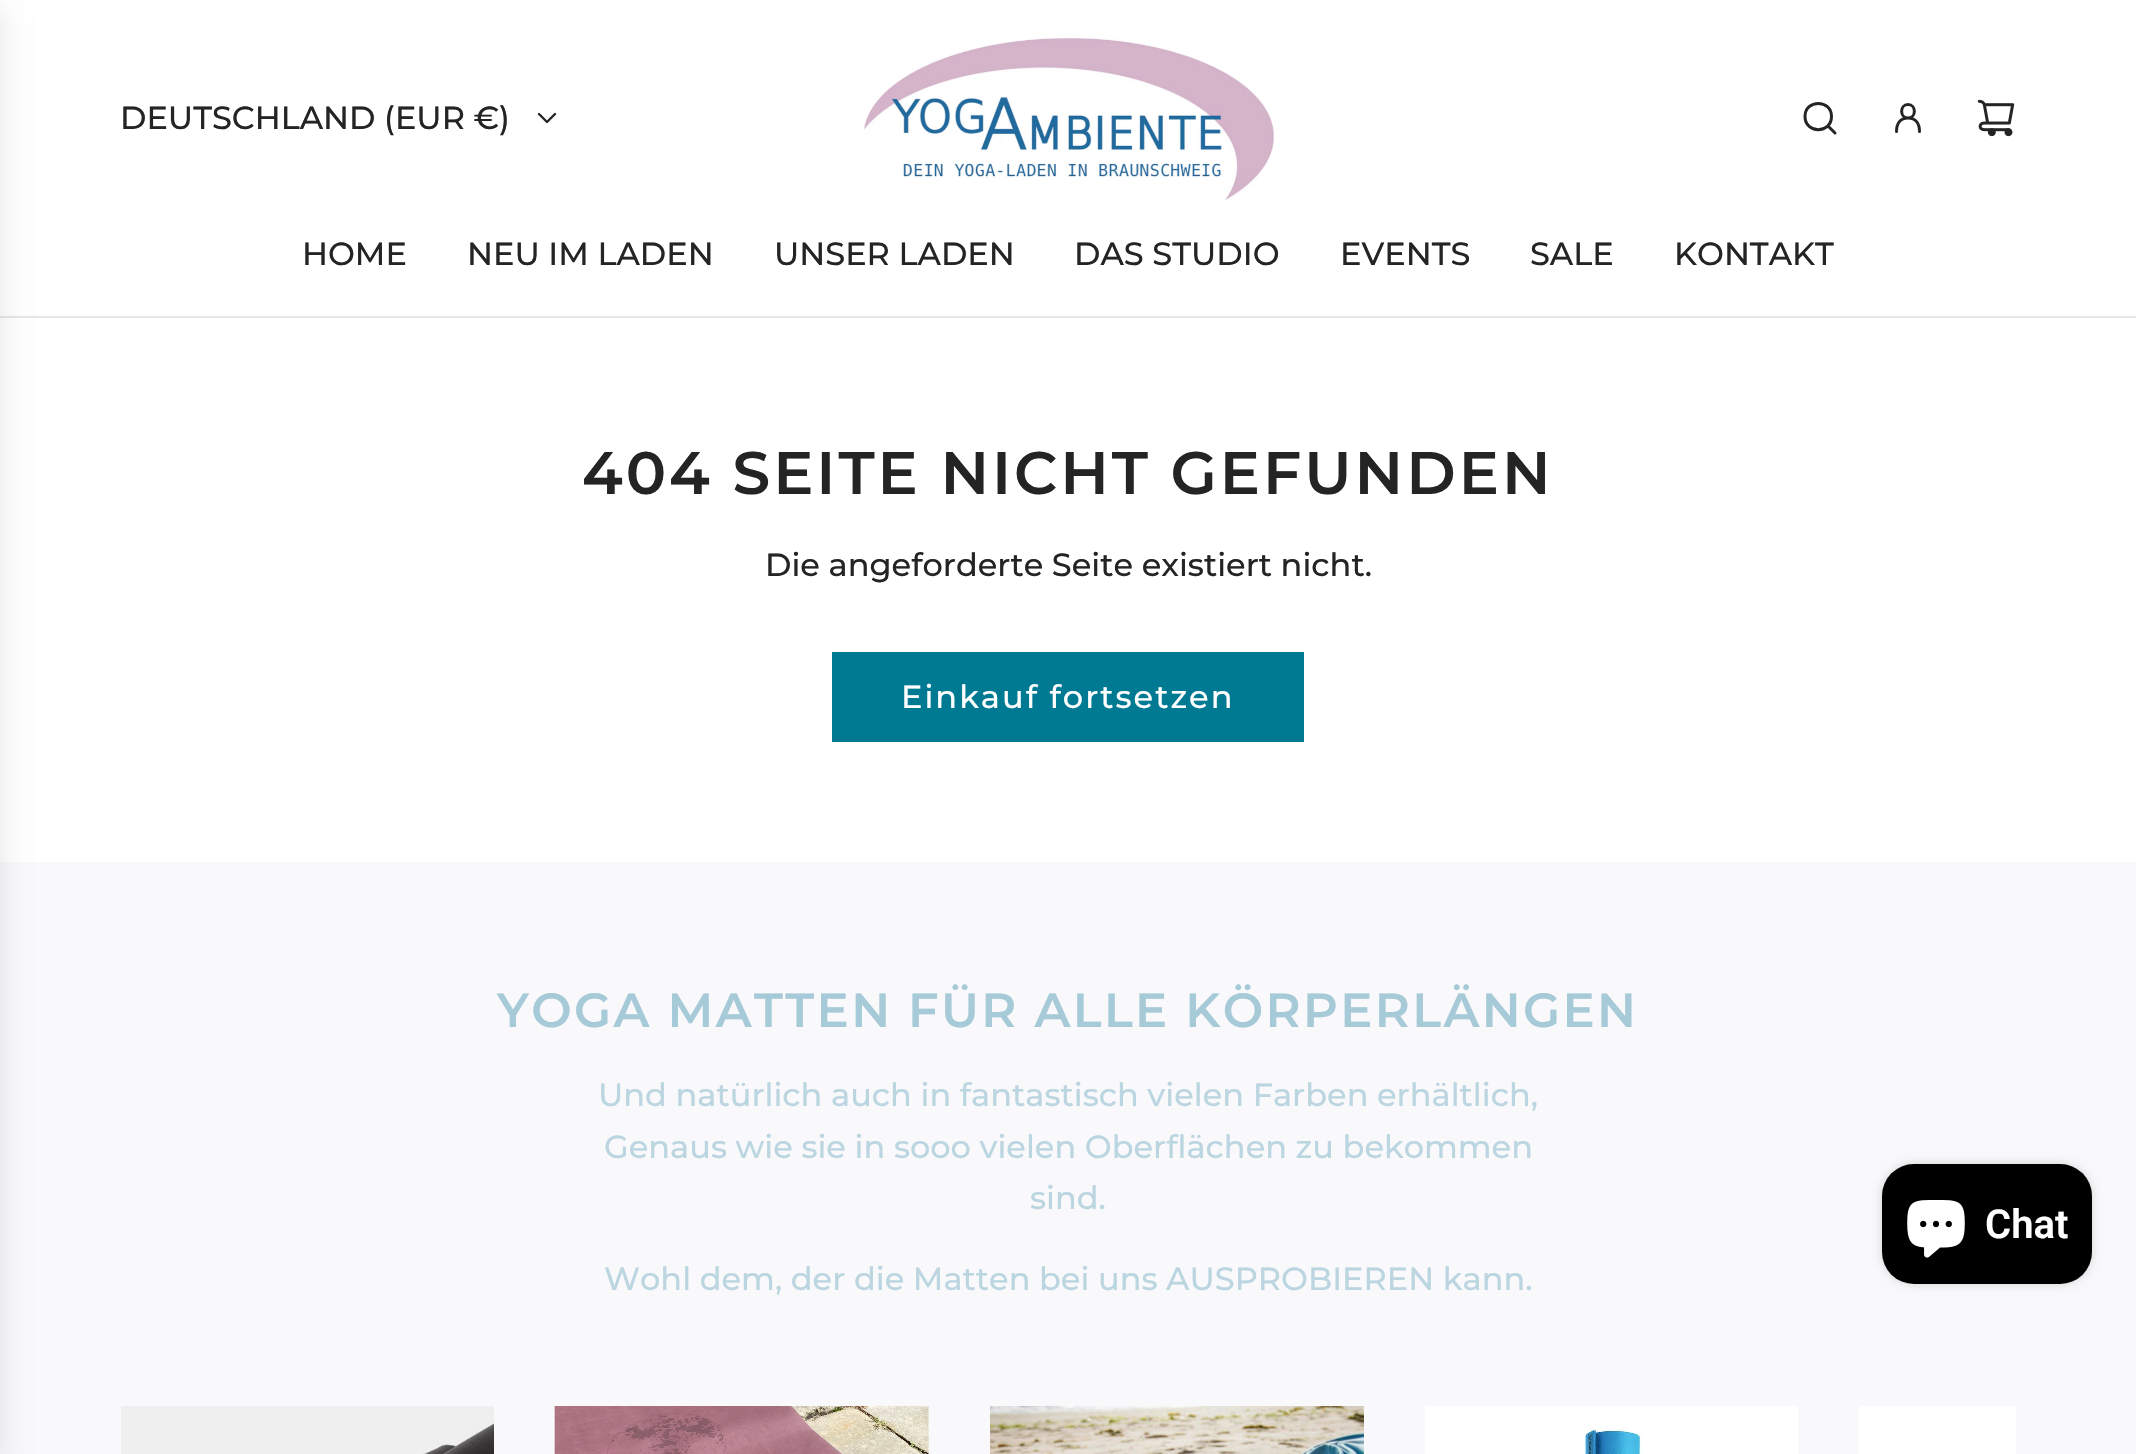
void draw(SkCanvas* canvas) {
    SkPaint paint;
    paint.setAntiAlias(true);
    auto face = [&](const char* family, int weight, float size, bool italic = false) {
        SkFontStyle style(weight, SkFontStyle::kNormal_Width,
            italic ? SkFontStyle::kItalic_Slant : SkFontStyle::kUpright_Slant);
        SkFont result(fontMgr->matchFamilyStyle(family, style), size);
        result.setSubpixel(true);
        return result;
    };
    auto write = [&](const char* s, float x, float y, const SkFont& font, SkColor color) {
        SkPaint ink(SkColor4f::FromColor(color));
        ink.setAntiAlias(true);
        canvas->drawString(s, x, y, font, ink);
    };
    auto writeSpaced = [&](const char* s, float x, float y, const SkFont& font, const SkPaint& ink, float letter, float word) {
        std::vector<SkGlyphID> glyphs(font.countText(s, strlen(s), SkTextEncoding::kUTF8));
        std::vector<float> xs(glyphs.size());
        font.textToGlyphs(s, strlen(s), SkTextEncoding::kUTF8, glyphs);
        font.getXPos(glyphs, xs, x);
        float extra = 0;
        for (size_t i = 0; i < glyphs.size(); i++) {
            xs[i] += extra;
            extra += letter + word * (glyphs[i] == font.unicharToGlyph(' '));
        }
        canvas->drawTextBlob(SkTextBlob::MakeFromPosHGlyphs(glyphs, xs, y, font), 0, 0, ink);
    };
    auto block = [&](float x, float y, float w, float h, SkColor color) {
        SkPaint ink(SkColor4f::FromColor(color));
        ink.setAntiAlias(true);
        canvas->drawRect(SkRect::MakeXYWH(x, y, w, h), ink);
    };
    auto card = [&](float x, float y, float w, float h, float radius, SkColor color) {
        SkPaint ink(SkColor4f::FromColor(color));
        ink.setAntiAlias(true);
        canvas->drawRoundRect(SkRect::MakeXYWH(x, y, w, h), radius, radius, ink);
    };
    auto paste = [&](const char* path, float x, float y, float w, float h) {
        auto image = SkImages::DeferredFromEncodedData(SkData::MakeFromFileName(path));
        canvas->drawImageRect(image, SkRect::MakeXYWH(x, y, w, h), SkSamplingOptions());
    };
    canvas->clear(SK_ColorWHITE);
    block(0, 316, 2136, 2, SkColorSetRGB(230, 229, 231));
    block(0, 862, 2136, 592, SkColorSetRGB(249, 249, 251));
    paint.setColor(SkColorSetARGB(26, 0, 0, 0));
    paint.setMaskFilter(SkMaskFilter::MakeBlur(kNormal_SkBlurStyle, 15));
    canvas->drawRect(SkRect::MakeXYWH(-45, 10, 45, 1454), paint);
    paint.setMaskFilter(nullptr);
    auto kFont1 = face("Montserrat", 500, 32);
    write("DEUTSCHLAND (EUR €)", 120, 129, kFont1, SkColorSetRGB(36, 36, 36));
    paint.setStyle(SkPaint::kStroke_Style);
    paint.setStrokeWidth(2.4f);
    paint.setStrokeCap(SkPaint::kRound_Cap);
    paint.setStrokeJoin(SkPaint::kRound_Join);
    paint.setColor(SkColorSetRGB(36, 36, 36));
    canvas->drawPath(SkPathBuilder().moveTo(539, 114).lineTo(547, 122).lineTo(555, 114).detach(), paint);
    paste("pic1.png", 864, 38, 410, 162);
    paint.setStrokeWidth(3);
    canvas->drawPath(SkPathBuilder().moveTo(1828.5f, 126.5f).lineTo(1835, 133).moveTo(1805, 116.5f).cubicTo(1805, 134, 1831.5f, 134, 1831.5f, 116.5f).cubicTo(1831.5f, 99, 1805, 99, 1805, 116.5f).close().detach(), paint);
    canvas->drawPath(SkPathBuilder().moveTo(1896.5f, 131.5f).cubicTo(1896.5f, 124, 1900, 118, 1908, 118).moveTo(1908, 118).cubicTo(1916, 118, 1919.5f, 124, 1919.5f, 131.5f).moveTo(1908, 118).cubicTo(1916.5f, 118, 1916.5f, 104.5f, 1908, 104.5f).cubicTo(1899.5f, 104.5f, 1899.5f, 118, 1908, 118).close().detach(), paint);
    paste("pic2.png", 1977, 99, 38, 38);
    write("HOME", 302, 265, kFont1, SkColorSetRGB(36, 36, 36));
    write("NEU IM LADEN", 467, 265, kFont1, SkColorSetRGB(36, 36, 36));
    write("UNSER LADEN", 774, 265, kFont1, SkColorSetRGB(36, 36, 36));
    write("DAS STUDIO", 1074, 265, kFont1, SkColorSetRGB(36, 36, 36));
    write("EVENTS", 1340, 265, kFont1, SkColorSetRGB(36, 36, 36));
    write("SALE", 1530, 265, kFont1, SkColorSetRGB(36, 36, 36));
    write("KONTAKT", 1674, 265, kFont1, SkColorSetRGB(36, 36, 36));
    auto kFont2 = face("Montserrat", 600, 60);
    paint.setStyle(SkPaint::kFill_Style);
    writeSpaced("404 SEITE NICHT GEFUNDEN", 582, 494, kFont2, paint, 3, 0);
    write("Die angeforderte Seite existiert nicht.", 765, 576, kFont1, SkColorSetRGB(36, 36, 36));
    block(832, 652, 472, 90, SkColorSetRGB(0, 122, 147));
    paint.setColor(SK_ColorWHITE);
    writeSpaced("Einkauf fortsetzen", 901, 708, kFont1, paint, 2, 0);
    auto kFont3 = face("Montserrat", 600, 48);
    paint.setColor(SkColorSetRGB(166, 202, 216));
    writeSpaced("YOGA MATTEN FÜR ALLE KÖRPERLÄNGEN", 497, 1027, kFont3, paint, 2.4f, 0);
    write("Und natürlich auch in fantastisch vielen Farben erhältlich,", 598, 1106, kFont1, SkColorSetRGB(187, 214, 225));
    write("Genaus wie sie in sooo vielen Oberflächen zu bekommen", 604, 1158, kFont1, SkColorSetRGB(187, 214, 225));
    write("sind.", 1030, 1209, kFont1, SkColorSetRGB(187, 214, 225));
    write("Wohl dem, der die Matten bei uns AUSPROBIEREN kann.", 604, 1290, kFont1, SkColorSetRGB(187, 214, 225));
    paste("pic3.png", 121, 1406, 373, 48);
    paste("pic4.png", 554, 1406, 375, 48);
    paste("pic5.png", 990, 1406, 374, 48);
    paste("pic6.png", 1425, 1406, 373, 48);
    block(1859, 1406, 157, 48, SK_ColorWHITE);
    paint.setColor(SkColorSetARGB(38, 0, 0, 0));
    paint.setMaskFilter(SkMaskFilter::MakeBlur(kNormal_SkBlurStyle, 5));
    canvas->drawRoundRect(SkRect::MakeXYWH(1882, 1164, 210, 120), 32, 32, paint);
    paint.setMaskFilter(nullptr);
    card(1882, 1164, 210, 120, 32, SK_ColorBLACK);
    paste("pic7.png", 1907, 1200, 58, 58);
    auto kFont4 = face("Roboto", 600, 40);
    write("Chat", 1985, 1238, kFont4, SK_ColorWHITE);
}
